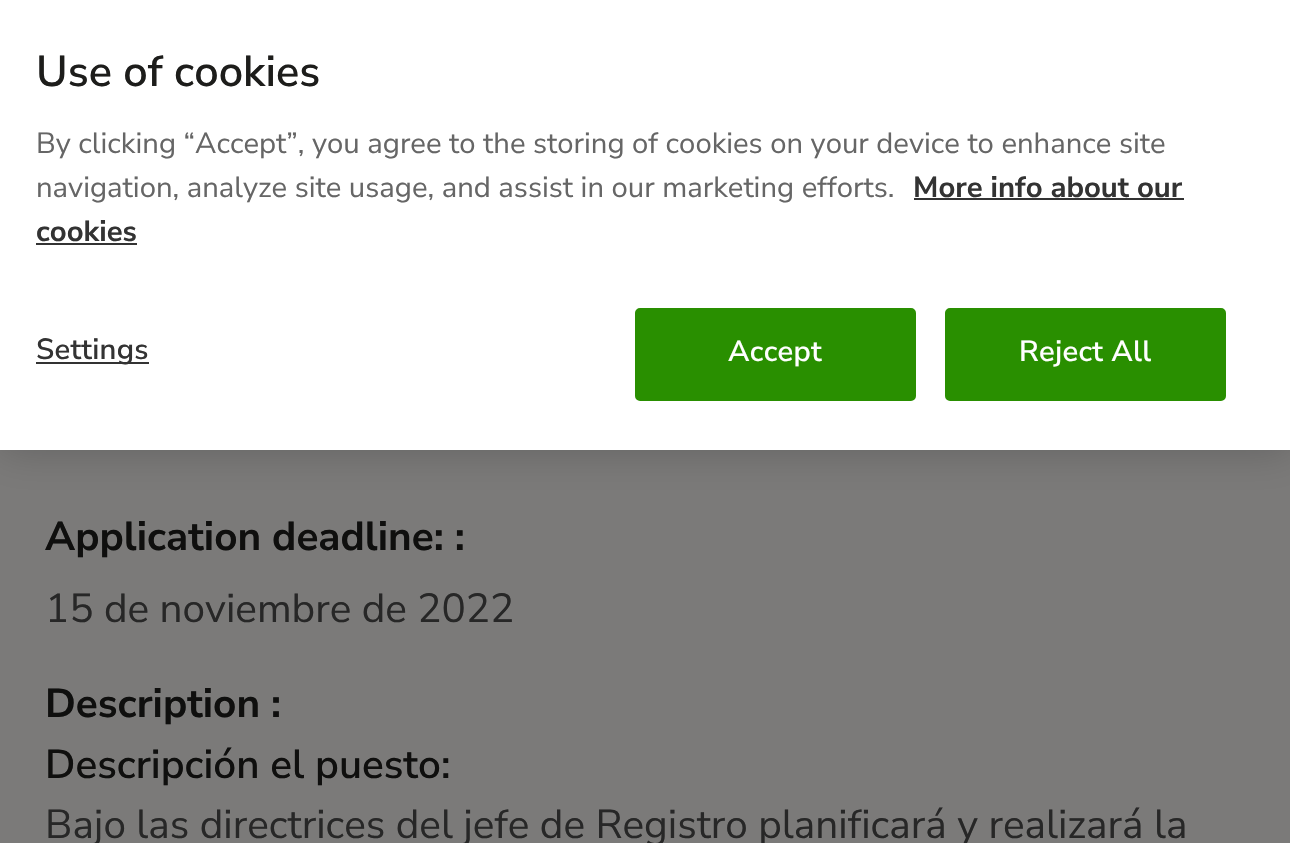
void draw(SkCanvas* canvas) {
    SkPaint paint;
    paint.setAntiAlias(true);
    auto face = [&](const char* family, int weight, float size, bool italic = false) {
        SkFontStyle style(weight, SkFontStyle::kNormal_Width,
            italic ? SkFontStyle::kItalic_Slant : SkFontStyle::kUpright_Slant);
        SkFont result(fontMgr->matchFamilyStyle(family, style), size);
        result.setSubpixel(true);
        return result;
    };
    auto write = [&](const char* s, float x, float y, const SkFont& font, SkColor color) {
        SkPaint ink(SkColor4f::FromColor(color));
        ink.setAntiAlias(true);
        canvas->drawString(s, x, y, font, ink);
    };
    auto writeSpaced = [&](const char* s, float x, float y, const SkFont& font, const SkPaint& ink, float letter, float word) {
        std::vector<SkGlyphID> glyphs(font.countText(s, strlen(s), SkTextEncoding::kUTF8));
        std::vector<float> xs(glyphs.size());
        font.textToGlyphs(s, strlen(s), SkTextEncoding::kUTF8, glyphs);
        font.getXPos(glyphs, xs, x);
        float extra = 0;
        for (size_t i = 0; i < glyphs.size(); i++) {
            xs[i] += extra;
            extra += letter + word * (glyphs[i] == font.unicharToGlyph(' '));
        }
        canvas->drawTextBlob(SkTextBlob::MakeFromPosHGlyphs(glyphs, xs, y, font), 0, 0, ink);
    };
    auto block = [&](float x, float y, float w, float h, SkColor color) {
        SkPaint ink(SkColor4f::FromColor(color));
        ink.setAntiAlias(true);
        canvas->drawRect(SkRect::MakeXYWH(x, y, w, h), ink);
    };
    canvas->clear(SkColorSetRGB(123, 122, 121));
    paint.setColor(SkColorSetARGB(51, 0, 0, 0));
    paint.setMaskFilter(SkMaskFilter::MakeBlur(kNormal_SkBlurStyle, 20));
    canvas->drawRect(SkRect::MakeXYWH(0, 0, 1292, 450), paint);
    paint.setMaskFilter(nullptr);
    block(0, 0, 1290, 450, SK_ColorWHITE);
    auto kFont1 = face("Nunito Sans", 600, 43.25f);
    write("Use of cookies", 36, 86, kFont1, SkColorSetRGB(29, 29, 27));
    auto kFont2 = face("Nunito Sans", 400, 29.25f);
    write("By clicking “Accept”, you agree to the storing of cookies on your device to enhance site", 36, 153, kFont2, SkColorSetRGB(102, 102, 102));
    write("navigation, analyze site usage, and assist in our marketing efforts.", 36, 197, kFont2, SkColorSetRGB(102, 102, 102));
    auto kFont3 = face("Nunito Sans", 700, 29.25f);
    write("More info about our", 913, 197, kFont3, SkColorSetRGB(51, 51, 51));
    block(914, 198, 270, 2, SkColorSetRGB(51, 51, 51));
    write("cookies", 36, 241, kFont3, SkColorSetRGB(51, 51, 51));
    block(36, 243, 101, 2, SkColorSetRGB(51, 51, 51));
    block(36, 362, 113, 2, SkColorSetRGB(51, 51, 51));
    auto kFont4 = face("Nunito Sans", 600, 29.25f);
    paint.setColor(SkColorSetRGB(51, 51, 51));
    writeSpaced("Settings", 36, 359, kFont4, paint, 0.25f, 0);
    paint.setColor(SkColorSetRGB(41, 143, 0));
    canvas->drawRoundRect(SkRect::MakeXYWH(636, 309, 279, 91), 4, 4, paint);
    paint.setStyle(SkPaint::kStroke_Style);
    paint.setStrokeWidth(2);
    canvas->drawRoundRect(SkRect::MakeXYWH(636, 309, 279, 91), 4, 4, paint);
    paint.setStyle(SkPaint::kFill_Style);
    paint.setColor(SK_ColorWHITE);
    writeSpaced("Accept", 728, 361, kFont4, paint, 0.25f, 0);
    paint.setColor(SkColorSetRGB(41, 143, 0));
    canvas->drawRoundRect(SkRect::MakeXYWH(946, 309, 279, 91), 4, 4, paint);
    paint.setStyle(SkPaint::kStroke_Style);
    canvas->drawRoundRect(SkRect::MakeXYWH(946, 309, 279, 91), 4, 4, paint);
    paint.setStyle(SkPaint::kFill_Style);
    paint.setColor(SK_ColorWHITE);
    writeSpaced("Reject All", 1019, 361, kFont4, paint, 0.25f, 0);
    auto kFont5 = face("Nunito Sans", 700, 40.5f);
    write("Application deadline: :", 45, 550, kFont5, SkColorSetRGB(15, 15, 14));
    auto kFont6 = face("Nunito Sans", 400, 40.5f);
    write("15 de noviembre de 2022", 45, 622, kFont6, SkColorSetRGB(39, 39, 39));
    write("Description :", 45, 717, kFont5, SkColorSetRGB(15, 15, 14));
    auto kFont7 = face("Nunito Sans", 600, 40.5f);
    write("Descripción el puesto:", 45, 778, kFont7, SkColorSetRGB(15, 15, 14));
    write("Bajo las directrices del jefe de Registro planificará y realizará la", 45, 838, kFont6, SkColorSetRGB(39, 39, 39));
}
